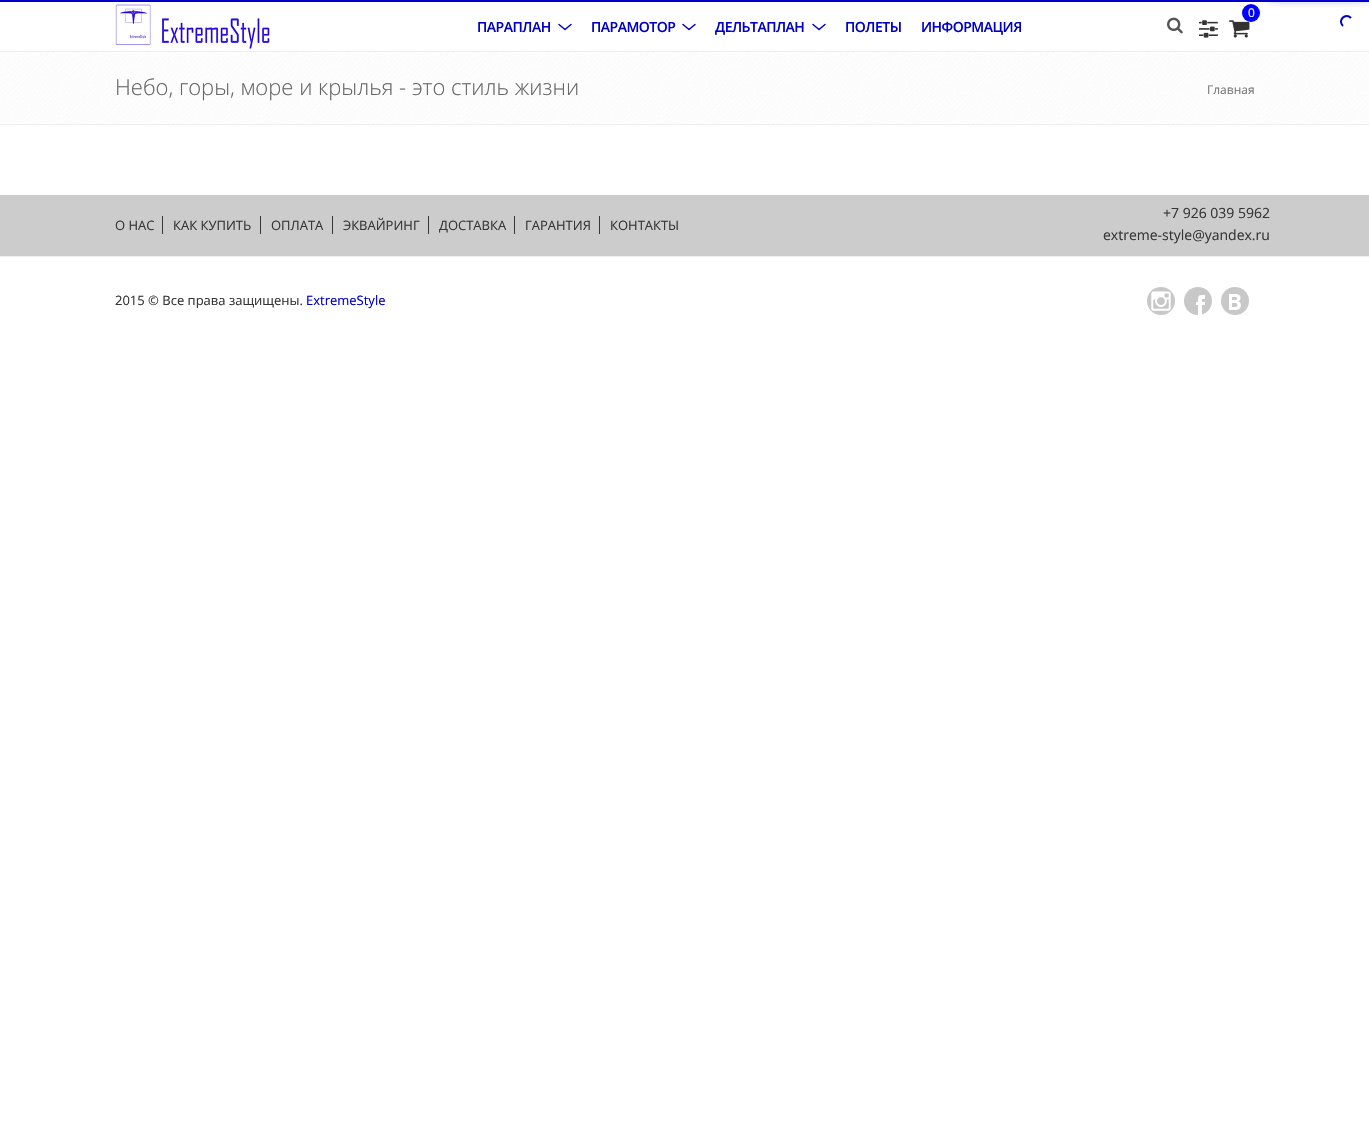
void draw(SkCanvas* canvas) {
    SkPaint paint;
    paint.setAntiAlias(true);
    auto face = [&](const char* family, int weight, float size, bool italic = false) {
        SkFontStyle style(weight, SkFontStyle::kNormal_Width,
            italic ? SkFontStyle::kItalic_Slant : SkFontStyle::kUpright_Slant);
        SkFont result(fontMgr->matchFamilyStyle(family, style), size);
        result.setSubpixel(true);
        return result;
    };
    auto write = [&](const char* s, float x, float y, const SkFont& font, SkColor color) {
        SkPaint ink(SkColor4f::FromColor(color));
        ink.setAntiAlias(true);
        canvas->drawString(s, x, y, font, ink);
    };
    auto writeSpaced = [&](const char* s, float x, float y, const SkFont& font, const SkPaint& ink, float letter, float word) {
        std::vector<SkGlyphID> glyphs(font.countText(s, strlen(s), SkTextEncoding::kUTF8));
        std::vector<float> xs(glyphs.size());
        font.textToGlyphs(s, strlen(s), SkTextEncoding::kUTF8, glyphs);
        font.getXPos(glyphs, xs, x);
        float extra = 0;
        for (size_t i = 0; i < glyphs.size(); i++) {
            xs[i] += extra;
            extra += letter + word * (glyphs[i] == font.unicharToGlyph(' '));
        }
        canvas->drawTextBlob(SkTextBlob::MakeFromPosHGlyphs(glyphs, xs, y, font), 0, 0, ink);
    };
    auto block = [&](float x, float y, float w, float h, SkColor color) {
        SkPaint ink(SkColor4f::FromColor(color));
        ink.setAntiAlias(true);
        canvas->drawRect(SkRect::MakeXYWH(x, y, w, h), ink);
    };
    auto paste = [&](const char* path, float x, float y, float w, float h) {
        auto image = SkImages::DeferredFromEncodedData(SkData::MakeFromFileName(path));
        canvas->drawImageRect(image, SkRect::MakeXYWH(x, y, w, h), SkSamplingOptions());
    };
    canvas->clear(SK_ColorWHITE);
    block(0, 0, 1369, 2, SkColorSetRGB(0, 0, 201));
    paste("pic2.png", 1229, 20, 21, 18);
    paint.setColor(SkColorSetRGB(0, 0, 255));
    canvas->drawCircle(1251, 13, 9, paint);
    paint.setColor(SkColorSetRGB(0, 0, 201));
    paint.setMaskFilter(SkMaskFilter::MakeBlur(kNormal_SkBlurStyle, 5));
    canvas->drawRect(SkRect::MakeXYWH(1269, -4, 100, 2), paint);
    paint.setMaskFilter(nullptr);
    paint.setStyle(SkPaint::kStroke_Style);
    paint.setStrokeWidth(2);
    canvas->drawPath(SkPathBuilder().moveTo(1343, 26).cubicTo(1337, 20.5f, 1345.5f, 12, 1351, 18).detach(), paint);
    block(0, 51, 1369, 1, SkColorSetRGB(238, 238, 238));
    paste("pic1.png", 115, 4, 155, 45);
    auto kFont1 = face("Open Sans", 400, 12);
    write("0", 1248, 17, kFont1, SK_ColorWHITE);
    paste("pic3.png", 1199, 20, 19, 18);
    paste("pic4.png", 1167, 17, 16, 17);
    auto kFont2 = face("Open Sans", 600, 14);
    paint.setStyle(SkPaint::kFill_Style);
    writeSpaced("ПАРАПЛАН", 477, 32, kFont2, paint, -0.5f, 0);
    paint.setStyle(SkPaint::kStroke_Style);
    paint.setStrokeWidth(1.5f);
    paint.setStrokeCap(SkPaint::kRound_Cap);
    paint.setStrokeJoin(SkPaint::kRound_Join);
    canvas->drawPath(SkPathBuilder().moveTo(571, 24.5f).lineTo(565, 29.5f).lineTo(559, 24.5f).detach(), paint);
    paint.setStyle(SkPaint::kFill_Style);
    writeSpaced("ПАРАМОТОР", 591, 32, kFont2, paint, -0.5f, 0);
    paint.setStyle(SkPaint::kStroke_Style);
    canvas->drawPath(SkPathBuilder().moveTo(695, 24.5f).lineTo(689, 29.5f).lineTo(683, 24.5f).detach(), paint);
    paint.setStyle(SkPaint::kFill_Style);
    writeSpaced("ДЕЛЬТАПЛАН", 715, 32, kFont2, paint, -0.5f, 0);
    paint.setStyle(SkPaint::kStroke_Style);
    canvas->drawPath(SkPathBuilder().moveTo(825, 24.5f).lineTo(819, 29.5f).lineTo(813, 24.5f).detach(), paint);
    paint.setStyle(SkPaint::kFill_Style);
    writeSpaced("ПОЛЕТЫ", 845, 32, kFont2, paint, -0.5f, 0);
    writeSpaced("ИНФОРМАЦИЯ", 921, 32, kFont2, paint, -0.5f, 0);
    paste("pic5.png", 0, 52, 1369, 72);
    block(0, 124, 1369, 1, SkColorSetRGB(238, 238, 238));
    auto kFont3 = face("Open Sans", 300, 22);
    write("Небо, горы, море и крылья - это стиль жизни", 115, 95, kFont3, SkColorSetRGB(102, 102, 102));
    write("Главная", 1207, 94, kFont1, SkColorSetRGB(119, 119, 119));
    block(0, 195, 1369, 61, SkColorSetRGB(204, 204, 204));
    auto kFont4 = face("Open Sans", 400, 13);
    write("О НАС", 115, 230, kFont4, SkColorSetRGB(54, 54, 54));
    write("КАК КУПИТЬ", 173, 230, kFont4, SkColorSetRGB(54, 54, 54));
    block(162, 216, 1, 18, SkColorSetRGB(54, 54, 54));
    write("ОПЛАТА", 271, 230, kFont4, SkColorSetRGB(54, 54, 54));
    block(260, 216, 1, 18, SkColorSetRGB(54, 54, 54));
    write("ЭКВАЙРИНГ", 343, 230, kFont4, SkColorSetRGB(54, 54, 54));
    block(332, 216, 1, 18, SkColorSetRGB(54, 54, 54));
    write("ДОСТАВКА", 439, 230, kFont4, SkColorSetRGB(54, 54, 54));
    block(428, 216, 1, 18, SkColorSetRGB(54, 54, 54));
    write("ГАРАНТИЯ", 525, 230, kFont4, SkColorSetRGB(54, 54, 54));
    block(514, 216, 1, 18, SkColorSetRGB(54, 54, 54));
    write("КОНТАКТЫ", 610, 230, kFont4, SkColorSetRGB(54, 54, 54));
    block(599, 216, 1, 18, SkColorSetRGB(54, 54, 54));
    auto kFont5 = face("Open Sans", 400, 14);
    write("+7 926 039 5962", 1163, 218, kFont5, SkColorSetRGB(54, 54, 54));
    write("extreme-style@yandex.ru", 1103, 240, kFont5, SkColorSetRGB(54, 54, 54));
    block(0, 256, 1369, 1, SkColorSetRGB(238, 238, 238));
    write("2015 © Все права защищены.", 115, 305, kFont4, SkColorSetRGB(54, 54, 54));
    write("ExtremeStyle", 306, 305, kFont4, SkColorSetRGB(0, 0, 201));
    paste("pic6.png", 1147, 287, 28, 28);
    paste("pic7.png", 1184, 287, 28, 28);
    paste("pic8.png", 1221, 287, 28, 28);
}
